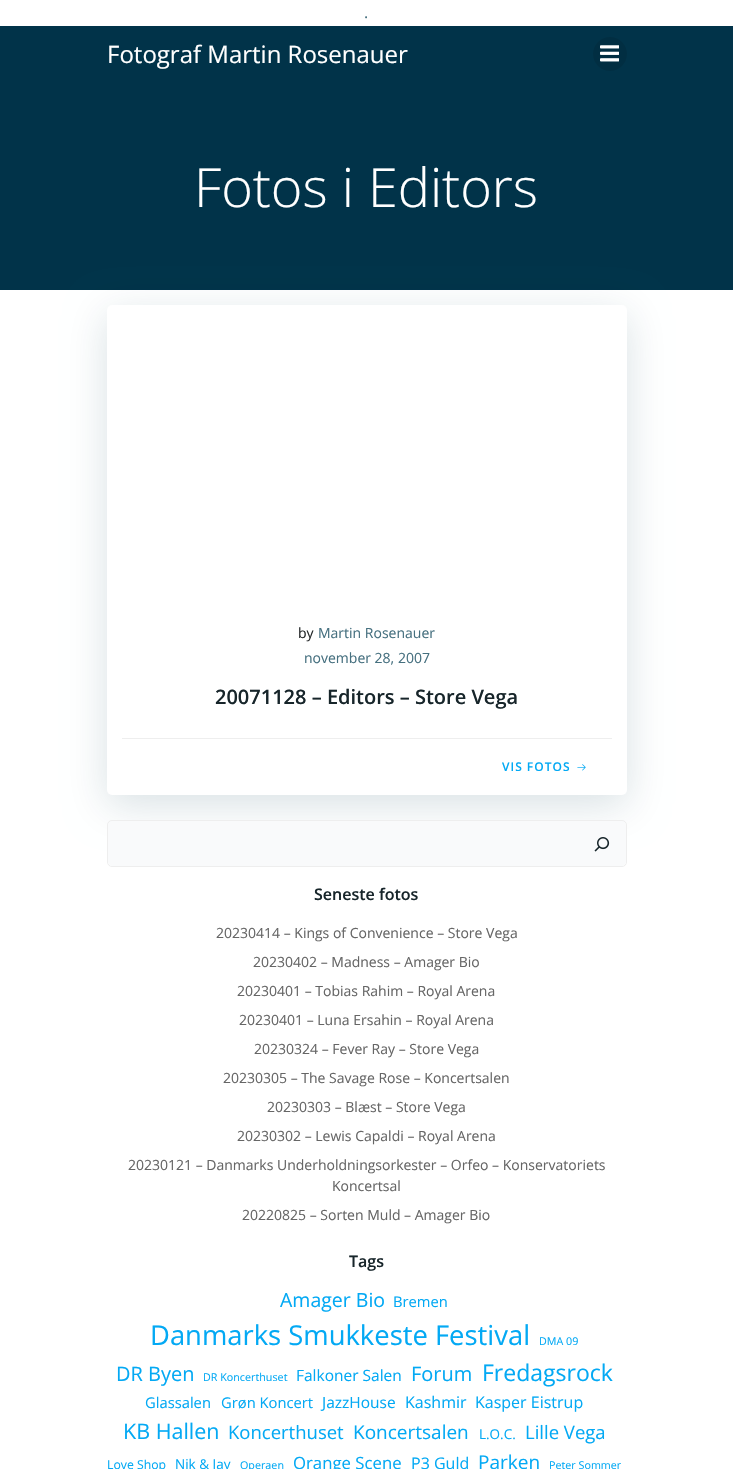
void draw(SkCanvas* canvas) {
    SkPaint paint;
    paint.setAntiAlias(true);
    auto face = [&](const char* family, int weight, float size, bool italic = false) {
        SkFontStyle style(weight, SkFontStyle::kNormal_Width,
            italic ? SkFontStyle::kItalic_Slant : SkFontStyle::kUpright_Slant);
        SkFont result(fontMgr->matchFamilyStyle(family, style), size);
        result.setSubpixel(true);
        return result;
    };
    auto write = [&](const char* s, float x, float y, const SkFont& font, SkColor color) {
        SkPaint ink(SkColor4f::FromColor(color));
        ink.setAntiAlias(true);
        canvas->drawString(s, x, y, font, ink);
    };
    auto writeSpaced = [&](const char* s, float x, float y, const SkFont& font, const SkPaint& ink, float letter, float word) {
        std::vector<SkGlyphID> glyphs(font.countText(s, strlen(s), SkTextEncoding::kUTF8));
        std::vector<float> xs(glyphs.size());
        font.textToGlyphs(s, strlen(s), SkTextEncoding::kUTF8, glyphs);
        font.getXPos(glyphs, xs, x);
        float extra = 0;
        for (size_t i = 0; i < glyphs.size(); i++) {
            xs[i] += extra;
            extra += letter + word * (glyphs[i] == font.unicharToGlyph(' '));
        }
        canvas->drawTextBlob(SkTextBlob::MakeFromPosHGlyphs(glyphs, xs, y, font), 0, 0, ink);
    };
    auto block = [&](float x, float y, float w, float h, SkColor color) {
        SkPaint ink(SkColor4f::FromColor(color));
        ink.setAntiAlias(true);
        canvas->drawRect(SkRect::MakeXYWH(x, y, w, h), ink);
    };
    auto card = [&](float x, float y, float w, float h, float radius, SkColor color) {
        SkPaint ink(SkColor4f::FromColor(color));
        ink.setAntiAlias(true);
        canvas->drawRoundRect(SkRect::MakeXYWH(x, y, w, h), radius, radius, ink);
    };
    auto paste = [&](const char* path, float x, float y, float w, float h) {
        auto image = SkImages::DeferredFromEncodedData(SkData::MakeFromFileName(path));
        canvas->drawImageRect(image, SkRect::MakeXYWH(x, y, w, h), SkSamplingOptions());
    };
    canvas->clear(SK_ColorWHITE);
    auto kFont1 = face("Open Sans", 400, 16);
    write(".", 364, 18, kFont1, SkColorSetRGB(70, 112, 127));
    block(0, 26, 733, 264, SkColorSetRGB(1, 51, 73));
    auto kFont2 = face("Open Sans", 400, 24);
    write("Fotograf Martin Rosenauer", 107, 63, kFont2, SK_ColorWHITE);
    paint.setColor(SkColorSetRGB(1, 46, 66));
    canvas->drawCircle(610, 54, 17, paint);
    paste("pic1.png", 600, 45, 19, 17);
    auto kFont3 = face("Open Sans", 300, 54);
    write("Fotos i Editors", 194, 207, kFont3, SK_ColorWHITE);
    paint.setColor(SkColorSetARGB(38, 1, 51, 74));
    paint.setMaskFilter(SkMaskFilter::MakeBlur(kNormal_SkBlurStyle, 20));
    canvas->drawRoundRect(SkRect::MakeXYWH(107, 315, 520, 490), 5, 5, paint);
    paint.setMaskFilter(nullptr);
    card(107, 305, 520, 490, 5, SK_ColorWHITE);
    block(122, 738, 490, 1, SkColorSetRGB(238, 238, 238));
    auto kFont4 = face("Open Sans", 400, 14);
    write("by", 298, 638, kFont4, SkColorSetRGB(37, 41, 42));
    write("Martin Rosenauer", 318, 638, kFont4, SkColorSetRGB(70, 112, 127));
    write("november 28, 2007", 304, 663, kFont4, SkColorSetRGB(70, 112, 127));
    auto kFont5 = face("Open Sans", 600, 20);
    write("20071128 – Editors – Store Vega", 215, 704, kFont5, SkColorSetRGB(23, 37, 42));
    auto kFont6 = face("Open Sans", 600, 12);
    paint.setColor(SkColorSetRGB(3, 169, 244));
    writeSpaced("VIS FOTOS", 502, 771, kFont6, paint, 1, 0);
    paste("pic2.png", 577, 764, 9, 7);
    paint.setStyle(SkPaint::kStroke_Style);
    paint.setStrokeWidth(1);
    paint.setColor(SkColorSetRGB(238, 238, 238));
    canvas->drawRoundRect(SkRect::MakeXYWH(107.5f, 820.5f, 519, 46), 4.5f, 4.5f, paint);
    canvas->save();
    canvas->clipPath(SkPathBuilder().moveTo(112, 821).lineTo(622, 821).cubicTo(624, 821, 626, 823, 626, 825).lineTo(626, 862).cubicTo(626, 864, 624, 866, 622, 866).lineTo(112, 866).cubicTo(110, 866, 108, 864, 108, 862).lineTo(108, 825).cubicTo(108, 823, 110, 821, 112, 821).close().detach(), true);
    paint.setStyle(SkPaint::kFill_Style);
    paint.setColor(SkColorSetRGB(249, 250, 251));
    canvas->drawPath(SkPathBuilder().moveTo(113, 821).lineTo(578, 821).lineTo(578, 866).lineTo(113, 866).cubicTo(110, 866, 108, 864, 108, 861).lineTo(108, 826).cubicTo(108, 823, 110, 821, 113, 821).close().detach(), paint);
    canvas->drawPath(SkPathBuilder().moveTo(578, 821).lineTo(621, 821).cubicTo(624, 821, 626, 823, 626, 826).lineTo(626, 861).cubicTo(626, 864, 624, 866, 621, 866).lineTo(578, 866).close().detach(), paint);
    canvas->restore();
    paste("pic3.png", 594, 837, 16, 15);
    auto kFont7 = face("Open Sans", 600, 16);
    write("Seneste fotos", 314, 900, kFont7, SkColorSetRGB(23, 37, 42));
    write("20230414 – Kings of Convenience – Store Vega", 216, 938, kFont4, SkColorSetRGB(102, 102, 102));
    write("20230402 – Madness – Amager Bio", 253, 967, kFont4, SkColorSetRGB(102, 102, 102));
    write("20230401 – Tobias Rahim – Royal Arena", 237, 996, kFont4, SkColorSetRGB(102, 102, 102));
    write("20230401 – Luna Ersahin – Royal Arena", 239, 1025, kFont4, SkColorSetRGB(102, 102, 102));
    write("20230324 – Fever Ray – Store Vega", 254, 1054, kFont4, SkColorSetRGB(102, 102, 102));
    write("20230305 – The Savage Rose – Koncertsalen", 223, 1083, kFont4, SkColorSetRGB(102, 102, 102));
    write("20230303 – Blæst – Store Vega", 267, 1112, kFont4, SkColorSetRGB(102, 102, 102));
    write("20230302 – Lewis Capaldi – Royal Arena", 237, 1141, kFont4, SkColorSetRGB(102, 102, 102));
    write("20230121 – Danmarks Underholdningsorkester – Orfeo – Konservatoriets", 128, 1170, kFont4, SkColorSetRGB(102, 102, 102));
    write("Koncertsal", 332, 1191, kFont4, SkColorSetRGB(102, 102, 102));
    write("20220825 – Sorten Muld – Amager Bio", 242, 1220, kFont4, SkColorSetRGB(102, 102, 102));
    write("Tags", 349, 1267, kFont7, SkColorSetRGB(23, 37, 42));
    auto kFont8 = face("Open Sans", 400, 19.5f);
    write("Amager Bio", 280, 1307, kFont8, SkColorSetRGB(3, 169, 244));
    auto kFont9 = face("Open Sans", 400, 14.75f);
    write("Bremen", 393, 1307, kFont9, SkColorSetRGB(3, 169, 244));
    auto kFont10 = face("Open Sans", 400, 27.4f);
    write("Danmarks Smukkeste Festival", 150, 1345, kFont10, SkColorSetRGB(3, 169, 244));
    auto kFont11 = face("Open Sans", 400, 10.75f);
    write("DMA 09", 539, 1345, kFont11, SkColorSetRGB(3, 169, 244));
    auto kFont12 = face("Open Sans", 400, 20);
    write("DR Byen", 116, 1381, kFont12, SkColorSetRGB(3, 169, 244));
    write("DR Koncerthuset", 203, 1381, kFont11, SkColorSetRGB(3, 169, 244));
    auto kFont13 = face("Open Sans", 400, 15.5f);
    write("Falkoner Salen", 296, 1381, kFont13, SkColorSetRGB(3, 169, 244));
    write("Forum", 411, 1381, kFont12, SkColorSetRGB(3, 169, 244));
    auto kFont14 = face("Open Sans", 400, 23);
    write("Fredagsrock", 482, 1381, kFont14, SkColorSetRGB(3, 169, 244));
    write("Glassalen", 145, 1408, kFont9, SkColorSetRGB(3, 169, 244));
    write("Grøn Koncert", 221, 1408, kFont9, SkColorSetRGB(3, 169, 244));
    write("JazzHouse", 322, 1408, kFont13, SkColorSetRGB(3, 169, 244));
    write("Kashmir", 405, 1408, kFont1, SkColorSetRGB(3, 169, 244));
    write("Kasper Eistrup", 475, 1408, kFont1, SkColorSetRGB(3, 169, 244));
    auto kFont15 = face("Open Sans", 400, 21.5f);
    write("KB Hallen", 123, 1439, kFont15, SkColorSetRGB(3, 169, 244));
    auto kFont16 = face("Open Sans", 400, 18.5f);
    write("Koncerthuset", 228, 1439, kFont16, SkColorSetRGB(3, 169, 244));
    auto kFont17 = face("Open Sans", 400, 19);
    write("Koncertsalen", 353, 1439, kFont17, SkColorSetRGB(3, 169, 244));
    auto kFont18 = face("Open Sans", 400, 13.5f);
    write("L.O.C.", 479, 1439, kFont18, SkColorSetRGB(3, 169, 244));
    write("Lille Vega", 525, 1439, kFont16, SkColorSetRGB(3, 169, 244));
    auto kFont19 = face("Open Sans", 400, 12.25f);
    write("Love Shop", 107, 1469, kFont19, SkColorSetRGB(3, 169, 244));
    write("Nik & Jay", 175, 1469, kFont18, SkColorSetRGB(3, 169, 244));
    write("Operaen", 240, 1469, kFont11, SkColorSetRGB(3, 169, 244));
    auto kFont20 = face("Open Sans", 400, 16.75f);
    write("Orange Scene", 293, 1469, kFont20, SkColorSetRGB(3, 169, 244));
    write("P3 Guld", 411, 1469, kFont1, SkColorSetRGB(3, 169, 244));
    write("Parken", 478, 1469, kFont17, SkColorSetRGB(3, 169, 244));
    write("Peter Sommer", 549, 1469, kFont11, SkColorSetRGB(3, 169, 244));
}
